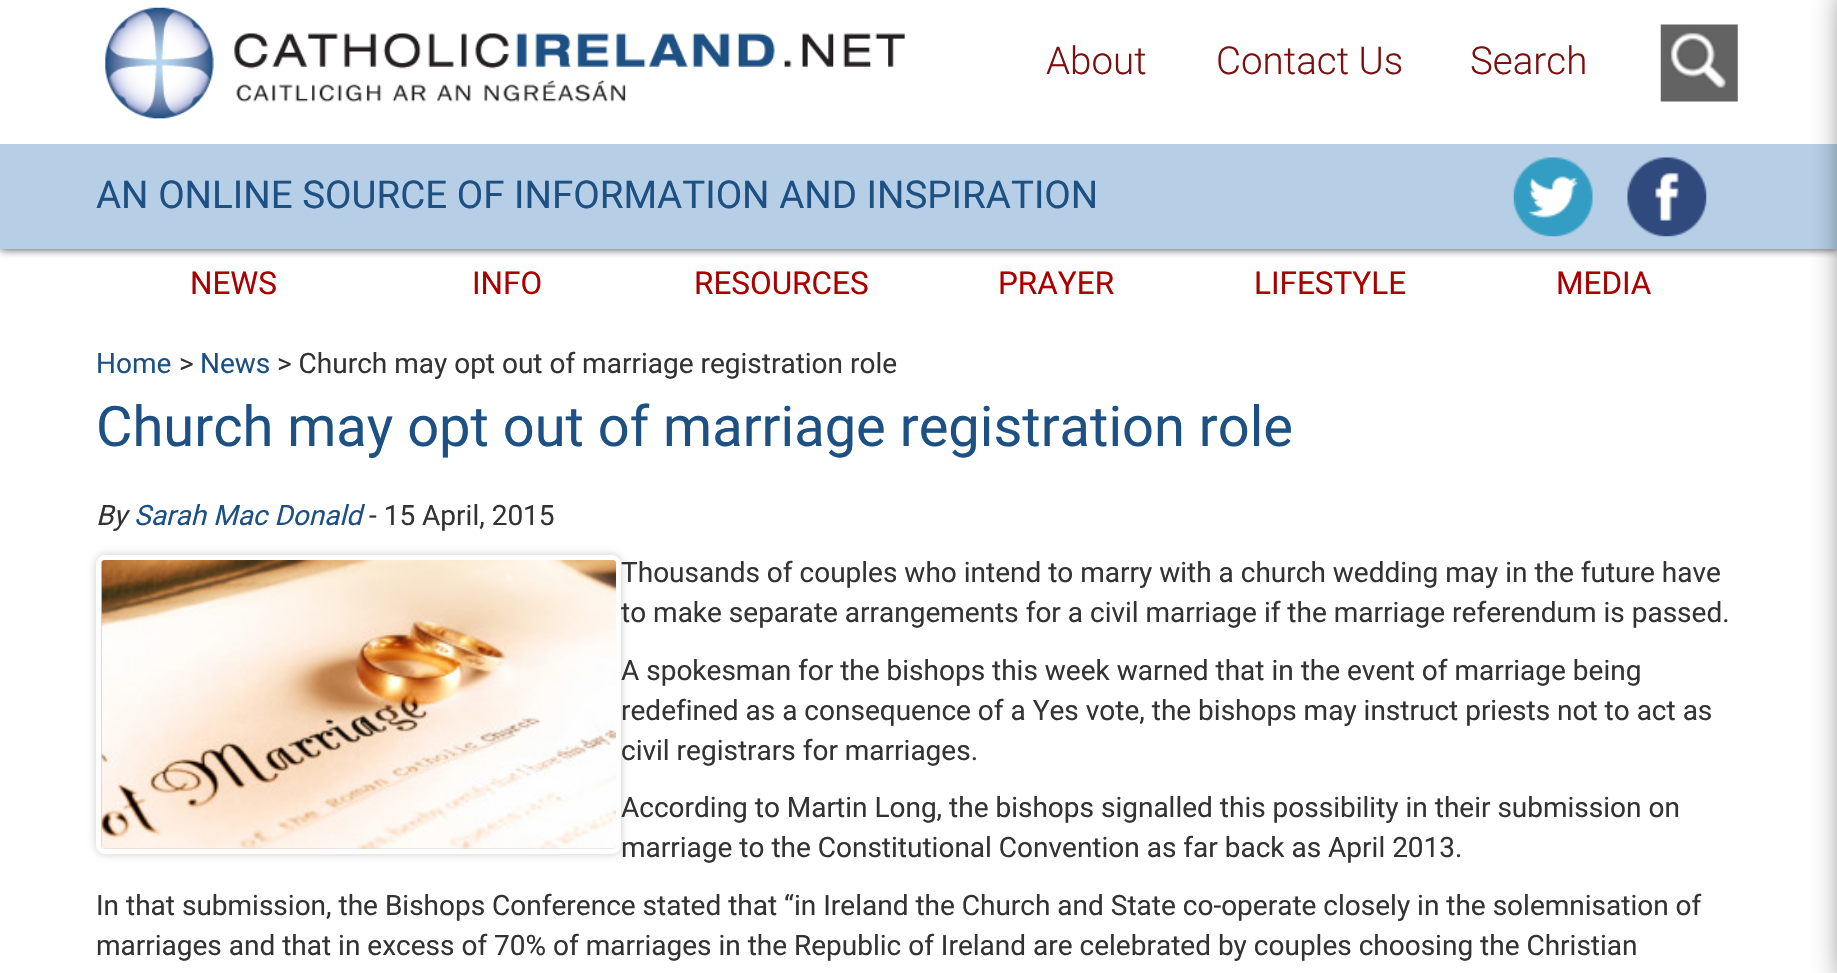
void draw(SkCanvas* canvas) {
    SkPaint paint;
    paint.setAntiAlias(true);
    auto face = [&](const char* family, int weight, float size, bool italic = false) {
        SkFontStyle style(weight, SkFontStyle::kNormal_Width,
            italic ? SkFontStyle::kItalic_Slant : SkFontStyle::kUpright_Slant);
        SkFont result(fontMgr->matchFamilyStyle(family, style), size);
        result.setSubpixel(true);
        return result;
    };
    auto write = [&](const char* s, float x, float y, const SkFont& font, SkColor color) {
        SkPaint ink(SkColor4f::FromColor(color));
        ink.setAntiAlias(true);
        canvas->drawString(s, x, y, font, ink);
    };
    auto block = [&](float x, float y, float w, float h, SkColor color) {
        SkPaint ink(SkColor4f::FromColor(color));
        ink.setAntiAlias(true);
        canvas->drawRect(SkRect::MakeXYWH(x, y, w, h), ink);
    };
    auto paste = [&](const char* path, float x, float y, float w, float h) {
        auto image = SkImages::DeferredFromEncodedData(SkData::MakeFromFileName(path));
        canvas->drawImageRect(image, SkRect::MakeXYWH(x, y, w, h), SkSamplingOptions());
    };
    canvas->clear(SK_ColorWHITE);
    canvas->save();
    canvas->clipRect(SkRect::MakeXYWH(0, 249, 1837, 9));
    paint.setColor(SkColorSetARGB(191, 0, 0, 0));
    paint.setMaskFilter(SkMaskFilter::MakeBlur(kNormal_SkBlurStyle, 4.5f));
    canvas->drawRect(SkRect::MakeXYWH(0, 0, 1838, 249), paint);
    paint.setMaskFilter(nullptr);
    canvas->restore();
    paste("pic1.png", 105, 7, 800, 112);
    auto kFont1 = face("Roboto", 300, 38.5f);
    write("About", 1046, 74, kFont1, SkColorSetRGB(125, 15, 15));
    write("Contact Us", 1216, 74, kFont1, SkColorSetRGB(125, 15, 15));
    write("Search", 1470, 74, kFont1, SkColorSetRGB(125, 15, 15));
    paste("pic2.png", 1660, 24, 78, 78);
    block(0, 144, 1837, 105, SkColorSetRGB(182, 206, 230));
    auto kFont2 = face("Roboto", 400, 38.5f);
    write("AN ONLINE SOURCE OF INFORMATION AND INSPIRATION", 96, 208, kFont2, SkColorSetRGB(29, 80, 131));
    paste("pic3.png", 1513, 157, 80, 80);
    paste("pic4.png", 1627, 157, 80, 80);
    paint.setColor(SK_ColorBLACK);
    paint.setMaskFilter(SkMaskFilter::MakeBlur(kNormal_SkBlurStyle, 18.5f));
    canvas->drawRect(SkRect::MakeXYWH(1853, -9, 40, 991), paint);
    paint.setMaskFilter(nullptr);
    auto kFont3 = face("Roboto", 400, 31.5f);
    write("NEWS", 190, 294, kFont3, SkColorSetRGB(171, 0, 0));
    write("INFO", 472, 294, kFont3, SkColorSetRGB(171, 0, 0));
    write("RESOURCES", 694, 294, kFont3, SkColorSetRGB(171, 0, 0));
    write("PRAYER", 998, 294, kFont3, SkColorSetRGB(171, 0, 0));
    write("LIFESTYLE", 1254, 294, kFont3, SkColorSetRGB(171, 0, 0));
    write("MEDIA", 1556, 294, kFont3, SkColorSetRGB(171, 0, 0));
    auto kFont4 = face("Roboto", 400, 28);
    write("Home", 96, 373, kFont4, SkColorSetRGB(29, 80, 131));
    write(">", 179, 373, kFont4, SkColorSetRGB(51, 51, 51));
    write("News", 200, 373, kFont4, SkColorSetRGB(29, 80, 131));
    write("> Church may opt out of marriage registration role", 277, 373, kFont4, SkColorSetRGB(51, 51, 51));
    auto kFont5 = face("Roboto", 400, 56);
    write("Church may opt out of marriage registration role", 96, 446, kFont5, SkColorSetRGB(29, 80, 131));
    auto kFont6 = face("Roboto", 400, 28, true);
    write("By", 96, 525, kFont6, SkColorSetRGB(51, 51, 51));
    write("Sarah Mac Donald", 134, 525, kFont6, SkColorSetRGB(29, 80, 131));
    write("- 15 April, 2015", 369, 525, kFont4, SkColorSetRGB(51, 51, 51));
    paint.setColor(SkColorSetARGB(51, 0, 0, 0));
    paint.setMaskFilter(SkMaskFilter::MakeBlur(kNormal_SkBlurStyle, 4.5f));
    canvas->drawRoundRect(SkRect::MakeXYWH(96, 555, 525, 299), 9, 9, paint);
    paint.setMaskFilter(nullptr);
    paint.setStyle(SkPaint::kStroke_Style);
    paint.setStrokeWidth(5);
    paint.setColor(SK_ColorWHITE);
    canvas->drawRoundRect(SkRect::MakeXYWH(98.5f, 557.5f, 520, 294), 6.5f, 6.5f, paint);
    paste("pic5.png", 101, 560, 515, 289);
    write("Thousands of couples who intend to marry with a church wedding may in the future have", 621, 582, kFont4, SkColorSetRGB(51, 51, 51));
    write("to make separate arrangements for a civil marriage if the marriage referendum is passed.", 621, 622, kFont4, SkColorSetRGB(51, 51, 51));
    write("A spokesman for the bishops this week warned that in the event of marriage being", 621, 680, kFont4, SkColorSetRGB(51, 51, 51));
    write("redefined as a consequence of a Yes vote, the bishops may instruct priests not to act as", 621, 720, kFont4, SkColorSetRGB(51, 51, 51));
    write("civil registrars for marriages.", 621, 760, kFont4, SkColorSetRGB(51, 51, 51));
    write("According to Martin Long, the bishops signalled this possibility in their submission on", 621, 817, kFont4, SkColorSetRGB(51, 51, 51));
    write("marriage to the Constitutional Convention as far back as April 2013.", 621, 857, kFont4, SkColorSetRGB(51, 51, 51));
    write("In that submission, the Bishops Conference stated that “in Ireland the Church and State co-operate closely in the solemnisation of", 96, 915, kFont4, SkColorSetRGB(51, 51, 51));
    write("marriages and that in excess of 70% of marriages in the Republic of Ireland are celebrated by couples choosing the Christian", 96, 955, kFont4, SkColorSetRGB(51, 51, 51));
}
